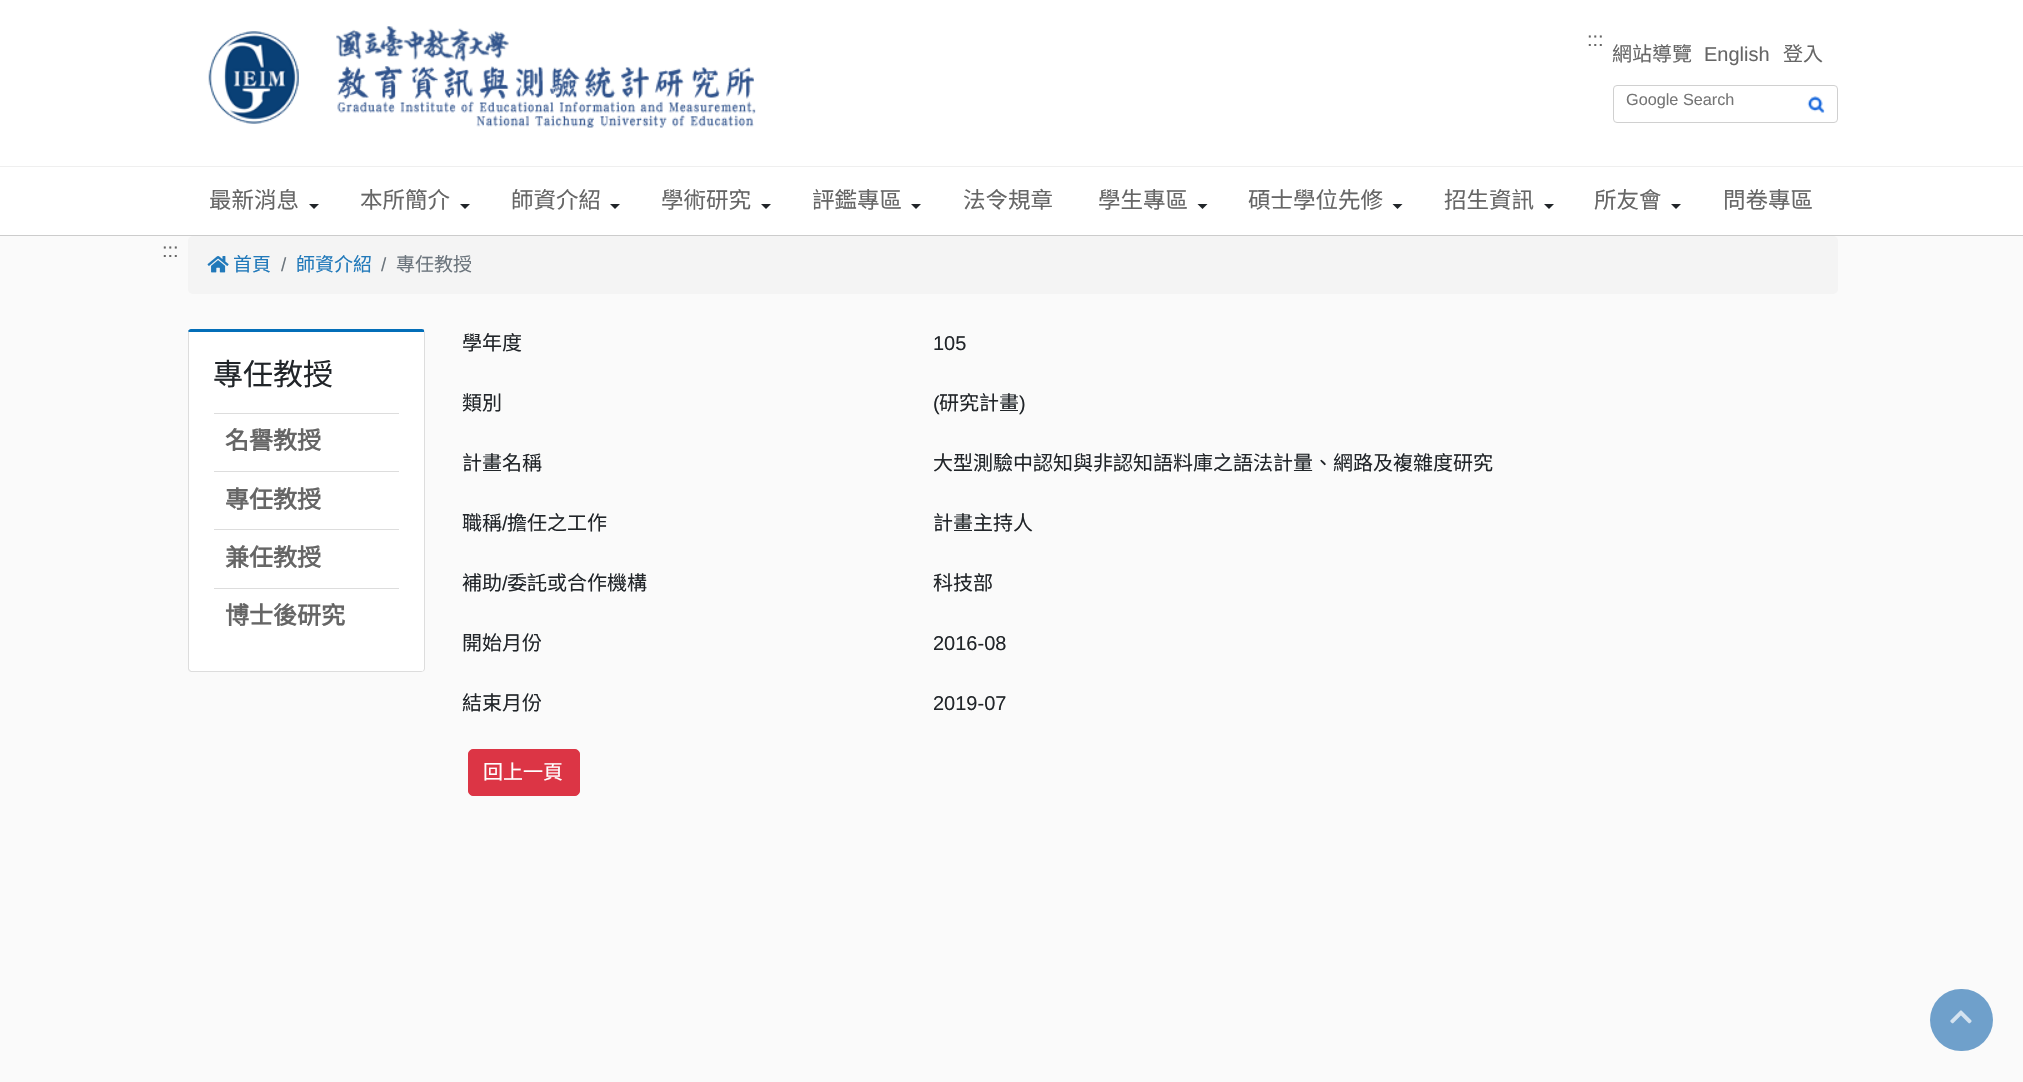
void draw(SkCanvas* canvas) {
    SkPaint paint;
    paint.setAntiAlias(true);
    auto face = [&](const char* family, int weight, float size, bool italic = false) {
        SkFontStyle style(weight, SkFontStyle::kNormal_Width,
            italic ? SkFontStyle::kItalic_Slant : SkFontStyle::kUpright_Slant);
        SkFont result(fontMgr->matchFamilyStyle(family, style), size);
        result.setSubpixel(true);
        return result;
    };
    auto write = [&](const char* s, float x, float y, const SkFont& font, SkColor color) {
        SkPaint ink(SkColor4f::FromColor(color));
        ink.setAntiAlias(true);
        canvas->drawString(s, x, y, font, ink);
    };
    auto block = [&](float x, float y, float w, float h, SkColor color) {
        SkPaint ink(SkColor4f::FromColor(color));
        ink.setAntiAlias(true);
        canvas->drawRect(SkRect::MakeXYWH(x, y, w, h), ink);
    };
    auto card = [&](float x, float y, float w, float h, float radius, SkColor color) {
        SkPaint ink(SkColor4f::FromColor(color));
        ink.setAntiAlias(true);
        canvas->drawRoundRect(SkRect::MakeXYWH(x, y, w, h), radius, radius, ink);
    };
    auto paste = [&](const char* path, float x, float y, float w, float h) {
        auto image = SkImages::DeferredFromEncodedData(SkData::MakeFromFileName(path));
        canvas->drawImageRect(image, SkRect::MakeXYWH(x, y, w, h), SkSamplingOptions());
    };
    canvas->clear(SkColorSetRGB(250, 250, 250));
    block(0, 0, 2023, 166, SK_ColorWHITE);
    paste("pic1.png", 208, 26, 548, 102);
    auto kFont1 = face("Liberation Sans", 400, 20);
    write(":::", 1587, 46, kFont1, SkColorSetRGB(102, 102, 102));
    auto kFont2 = face("Noto Sans CJK TC", 400, 20);
    write("網站導覽", 1612, 61, kFont2, SkColorSetRGB(102, 102, 102));
    write("English", 1704, 61, kFont1, SkColorSetRGB(102, 102, 102));
    write("登入", 1783, 61, kFont2, SkColorSetRGB(102, 102, 102));
    paint.setStyle(SkPaint::kStroke_Style);
    paint.setStrokeWidth(1);
    paint.setColor(SkColorSetRGB(208, 208, 208));
    canvas->drawRoundRect(SkRect::MakeXYWH(1613.5f, 85.5f, 224, 37), 3.5f, 3.5f, paint);
    auto kFont3 = face("Liberation Sans", 400, 16.25f);
    write("Google Search", 1626, 105, kFont3, SkColorSetRGB(117, 117, 117));
    paste("pic2.png", 1807, 96, 18, 17);
    block(0, 167, 2023, 68, SK_ColorWHITE);
    block(0, 166, 2023, 1, SkColorSetRGB(239, 239, 239));
    block(0, 235, 2023, 1, SkColorSetRGB(204, 204, 204));
    auto kFont4 = face("Noto Sans CJK TC", 400, 22.5f);
    write("最新消息", 209, 208, kFont4, SkColorSetRGB(102, 102, 102));
    paint.setStyle(SkPaint::kFill_Style);
    paint.setColor(SkColorSetRGB(33, 37, 41));
    canvas->drawPath(SkPathBuilder().moveTo(309, 204).lineTo(319, 204).lineTo(314, 209).close().detach(), paint);
    write("本所簡介", 360, 208, kFont4, SkColorSetRGB(102, 102, 102));
    canvas->drawPath(SkPathBuilder().moveTo(460, 204).lineTo(470, 204).lineTo(465, 209).close().detach(), paint);
    write("師資介紹", 511, 208, kFont4, SkColorSetRGB(102, 102, 102));
    canvas->drawPath(SkPathBuilder().moveTo(610, 204).lineTo(620, 204).lineTo(615, 209).close().detach(), paint);
    write("學術研究", 661, 208, kFont4, SkColorSetRGB(102, 102, 102));
    canvas->drawPath(SkPathBuilder().moveTo(761, 204).lineTo(771, 204).lineTo(766, 209).close().detach(), paint);
    write("評鑑專區", 812, 208, kFont4, SkColorSetRGB(102, 102, 102));
    canvas->drawPath(SkPathBuilder().moveTo(911, 204).lineTo(921, 204).lineTo(916, 209).close().detach(), paint);
    write("法令規章", 963, 208, kFont4, SkColorSetRGB(102, 102, 102));
    write("學生專區", 1098, 208, kFont4, SkColorSetRGB(102, 102, 102));
    canvas->drawPath(SkPathBuilder().moveTo(1197.5f, 204).lineTo(1207.5f, 204).lineTo(1202.5f, 209).close().detach(), paint);
    write("碩士學位先修", 1248, 208, kFont4, SkColorSetRGB(102, 102, 102));
    canvas->drawPath(SkPathBuilder().moveTo(1392.5f, 204).lineTo(1402.5f, 204).lineTo(1397.5f, 209).close().detach(), paint);
    write("招生資訊", 1444, 208, kFont4, SkColorSetRGB(102, 102, 102));
    canvas->drawPath(SkPathBuilder().moveTo(1544, 204).lineTo(1554, 204).lineTo(1549, 209).close().detach(), paint);
    write("所友會", 1594, 208, kFont4, SkColorSetRGB(102, 102, 102));
    canvas->drawPath(SkPathBuilder().moveTo(1671, 204).lineTo(1681, 204).lineTo(1676, 209).close().detach(), paint);
    write("問卷專區", 1723, 208, kFont4, SkColorSetRGB(102, 102, 102));
    write(":::", 162, 257, kFont1, SkColorSetRGB(102, 102, 102));
    card(188, 236, 1650, 58, 5, SkColorSetRGB(244, 244, 244));
    paste("pic3.png", 207, 256, 22, 17);
    auto kFont5 = face("Noto Sans CJK TC", 400, 19);
    write("首頁", 233, 271, kFont5, SkColorSetRGB(33, 121, 186));
    auto kFont6 = face("Liberation Sans", 400, 19);
    write("/", 281, 271, kFont6, SkColorSetRGB(108, 117, 125));
    write("師資介紹", 296, 271, kFont5, SkColorSetRGB(33, 121, 186));
    write("/", 381, 271, kFont6, SkColorSetRGB(108, 117, 125));
    write("專任教授", 396, 271, kFont5, SkColorSetRGB(108, 117, 125));
    paint.setColor(SK_ColorWHITE);
    canvas->drawPath(SkPathBuilder().moveTo(191, 332).lineTo(424, 332).lineTo(424, 669).cubicTo(424, 670, 423, 671, 421, 671).lineTo(191, 671).cubicTo(190, 671, 189, 670, 189, 669).lineTo(189, 332).close().detach(), paint);
    paint.setColor(SkColorSetRGB(3, 110, 184));
    canvas->drawPath(SkPathBuilder().moveTo(191, 329).cubicTo(189, 329, 189, 330, 188, 331).lineTo(189, 333).lineTo(189, 332).lineTo(424, 332).lineTo(424, 330).cubicTo(424, 329, 422, 329, 421, 329).close().detach(), paint);
    paint.setColor(SkColorSetRGB(221, 221, 221));
    canvas->drawPath(SkPathBuilder().moveTo(425, 669).lineTo(425, 332).lineTo(424, 330).lineTo(424, 332).lineTo(424, 669).lineTo(423, 671).lineTo(424, 671).close().detach(), paint);
    canvas->drawPath(SkPathBuilder().moveTo(424, 671).lineTo(421, 672).lineTo(191, 672).lineTo(189, 671).lineTo(190, 670).lineTo(191, 671).lineTo(421, 671).lineTo(423, 671).close().detach(), paint);
    canvas->drawPath(SkPathBuilder().moveTo(188, 331).lineTo(188, 669).lineTo(189, 671).lineTo(190, 670).lineTo(189, 669).lineTo(189, 333).close().detach(), paint);
    auto kFont7 = face("Noto Sans CJK TC", 400, 30);
    write("專任教授", 213, 385, kFont7, SkColorSetRGB(33, 37, 41));
    block(214, 413, 185, 1, SkColorSetRGB(221, 221, 221));
    auto kFont8 = face("Noto Sans CJK TC", 700, 24);
    write("名譽教授", 225, 449, kFont8, SkColorSetRGB(102, 102, 102));
    block(214, 471, 185, 1, SkColorSetRGB(221, 221, 221));
    write("專任教授", 225, 508, kFont8, SkColorSetRGB(102, 102, 102));
    block(214, 529, 185, 1, SkColorSetRGB(221, 221, 221));
    write("兼任教授", 225, 566, kFont8, SkColorSetRGB(102, 102, 102));
    block(214, 588, 185, 1, SkColorSetRGB(221, 221, 221));
    write("博士後研究", 225, 624, kFont8, SkColorSetRGB(102, 102, 102));
    write("學年度", 462, 350, kFont2, SkColorSetRGB(33, 37, 41));
    write("105", 933, 350, kFont1, SkColorSetRGB(33, 37, 41));
    write("類別", 462, 410, kFont2, SkColorSetRGB(33, 37, 41));
    write("(", 933, 410, kFont1, SkColorSetRGB(33, 37, 41));
    write("研究計畫", 939, 410, kFont2, SkColorSetRGB(33, 37, 41));
    write(")", 1019, 410, kFont1, SkColorSetRGB(33, 37, 41));
    write("計畫名稱", 462, 470, kFont2, SkColorSetRGB(33, 37, 41));
    write("大型測驗中認知與非認知語料庫之語法計量、網路及複雜度研究", 933, 470, kFont2, SkColorSetRGB(33, 37, 41));
    write("職稱", 462, 530, kFont2, SkColorSetRGB(33, 37, 41));
    write("/", 502, 530, kFont1, SkColorSetRGB(33, 37, 41));
    write("擔任之工作", 507, 530, kFont2, SkColorSetRGB(33, 37, 41));
    write("計畫主持人", 933, 530, kFont2, SkColorSetRGB(33, 37, 41));
    write("補助", 462, 590, kFont2, SkColorSetRGB(33, 37, 41));
    write("/", 502, 590, kFont1, SkColorSetRGB(33, 37, 41));
    write("委託或合作機構", 507, 590, kFont2, SkColorSetRGB(33, 37, 41));
    write("科技部", 933, 590, kFont2, SkColorSetRGB(33, 37, 41));
    write("開始月份", 462, 650, kFont2, SkColorSetRGB(33, 37, 41));
    write("2016-08", 933, 650, kFont1, SkColorSetRGB(33, 37, 41));
    write("結束月份", 462, 710, kFont2, SkColorSetRGB(33, 37, 41));
    write("2019-07", 933, 710, kFont1, SkColorSetRGB(33, 37, 41));
    paint.setColor(SkColorSetRGB(220, 53, 69));
    canvas->drawRoundRect(SkRect::MakeXYWH(468.5f, 749.5f, 111, 46), 4.5f, 4.5f, paint);
    paint.setStyle(SkPaint::kStroke_Style);
    canvas->drawRoundRect(SkRect::MakeXYWH(468.5f, 749.5f, 111, 46), 4.5f, 4.5f, paint);
    write("回上一頁", 483, 779, kFont2, SK_ColorWHITE);
    card(1930, 989, 63, 62, 31, SkColorSetRGB(111, 160, 203));
    paste("pic4.png", 1950, 1010, 22, 14);
}
